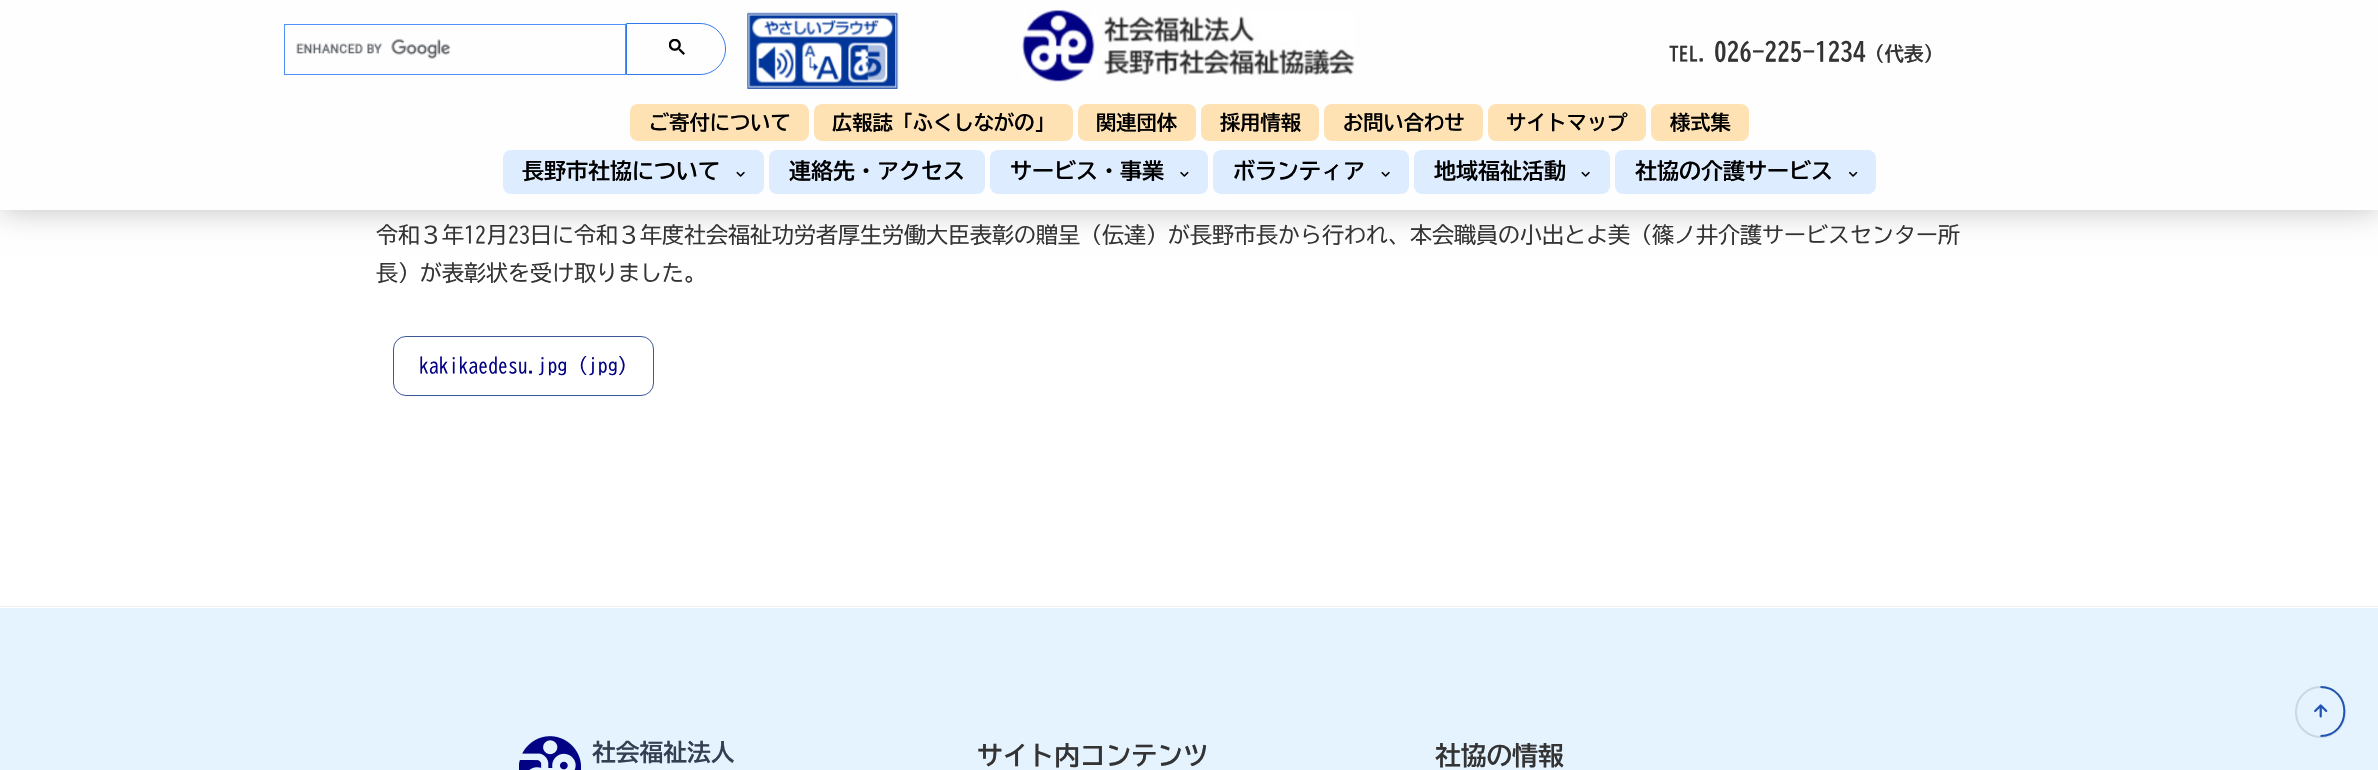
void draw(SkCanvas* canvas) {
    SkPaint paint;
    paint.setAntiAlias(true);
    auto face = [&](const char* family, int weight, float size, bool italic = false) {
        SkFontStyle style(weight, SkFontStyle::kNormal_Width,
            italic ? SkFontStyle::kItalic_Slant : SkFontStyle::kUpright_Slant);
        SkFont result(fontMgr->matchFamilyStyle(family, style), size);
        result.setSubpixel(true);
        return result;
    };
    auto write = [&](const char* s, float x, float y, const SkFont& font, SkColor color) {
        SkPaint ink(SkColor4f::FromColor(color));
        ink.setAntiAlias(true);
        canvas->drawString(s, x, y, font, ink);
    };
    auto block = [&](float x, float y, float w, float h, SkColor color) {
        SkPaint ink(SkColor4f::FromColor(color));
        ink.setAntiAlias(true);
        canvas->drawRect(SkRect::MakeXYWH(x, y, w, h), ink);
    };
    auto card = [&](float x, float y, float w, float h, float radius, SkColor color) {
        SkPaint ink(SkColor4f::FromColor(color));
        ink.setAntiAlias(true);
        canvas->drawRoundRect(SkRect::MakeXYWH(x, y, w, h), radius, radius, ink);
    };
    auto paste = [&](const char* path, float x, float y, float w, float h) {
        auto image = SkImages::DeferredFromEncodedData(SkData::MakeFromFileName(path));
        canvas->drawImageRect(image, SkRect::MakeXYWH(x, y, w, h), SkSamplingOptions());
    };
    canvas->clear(SK_ColorWHITE);
    paint.setColor(SkColorSetARGB(64, 0, 0, 0));
    paint.setMaskFilter(SkMaskFilter::MakeBlur(kNormal_SkBlurStyle, 15));
    canvas->drawRect(SkRect::MakeXYWH(0, 0, 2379, 210), paint);
    paint.setMaskFilter(nullptr);
    block(0, 0, 2378, 210, SkColorSetRGB(254, 254, 254));
    paint.setStyle(SkPaint::kStroke_Style);
    paint.setStrokeWidth(1);
    paint.setColor(SkColorSetRGB(77, 144, 254));
    canvas->drawRect(SkRect::MakeXYWH(284.5f, 24.5f, 341, 50), paint);
    paste("pic1.png", 296, 39, 155, 20);
    paint.setColor(SkColorSetRGB(48, 121, 237));
    canvas->drawPath(SkPathBuilder().moveTo(626.5f, 23.5f).lineTo(700, 23.5f).cubicTo(714, 23.5f, 725.5f, 35, 725.5f, 49).cubicTo(725.5f, 63, 714, 74.5f, 700, 74.5f).lineTo(626.5f, 74.5f).close().detach(), paint);
    paste("pic2.png", 669, 39, 16, 16);
    paste("pic3.png", 747, 12, 152, 77);
    paste("pic4.png", 1022, 10, 333, 72);
    auto kFont1 = face("BIZ UDGothic", 700, 19.5f);
    write("TEL.", 1669, 61, kFont1, SkColorSetRGB(52, 52, 52));
    auto kFont2 = face("BIZ UDGothic", 700, 25.25f);
    write("026-225-1234", 1714, 61, kFont2, SkColorSetRGB(52, 52, 52));
    write("（代表）", 1865, 61, kFont1, SkColorSetRGB(52, 52, 52));
    card(630, 104, 179, 37, 8, SkColorSetRGB(255, 226, 180));
    auto kFont3 = face("BIZ UDGothic", 700, 20.25f);
    write("ご寄付について", 649, 130, kFont3, SK_ColorBLACK);
    card(814, 104, 259, 37, 8, SkColorSetRGB(255, 226, 180));
    write("広報誌「ふくしながの」", 832, 130, kFont3, SK_ColorBLACK);
    card(1078, 104, 118, 37, 8, SkColorSetRGB(255, 226, 180));
    write("関連団体", 1096, 130, kFont3, SK_ColorBLACK);
    card(1201, 104, 118, 37, 8, SkColorSetRGB(255, 226, 180));
    write("採用情報", 1220, 130, kFont3, SK_ColorBLACK);
    card(1324, 104, 159, 37, 8, SkColorSetRGB(255, 226, 180));
    write("お問い合わせ", 1343, 130, kFont3, SK_ColorBLACK);
    card(1488, 104, 158, 37, 8, SkColorSetRGB(255, 226, 180));
    write("サイトマップ", 1506, 130, kFont3, SK_ColorBLACK);
    card(1651, 104, 98, 37, 8, SkColorSetRGB(255, 226, 180));
    write("様式集", 1670, 130, kFont3, SK_ColorBLACK);
    card(503, 150, 261, 44, 8, SkColorSetRGB(222, 236, 255));
    auto kFont4 = face("BIZ UDGothic", 700, 22);
    write("長野市社協について", 522, 179, kFont4, SK_ColorBLACK);
    paste("pic5.png", 736, 171, 9, 6);
    card(769, 150, 216, 44, 8, SkColorSetRGB(222, 236, 255));
    write("連絡先・アクセス", 789, 179, kFont4, SK_ColorBLACK);
    card(990, 150, 218, 44, 8, SkColorSetRGB(222, 236, 255));
    write("サービス・事業", 1010, 179, kFont4, SK_ColorBLACK);
    paste("pic6.png", 1180, 171, 9, 6);
    card(1213, 150, 196, 44, 8, SkColorSetRGB(222, 236, 255));
    write("ボランティア", 1233, 179, kFont4, SK_ColorBLACK);
    paste("pic5.png", 1381, 171, 9, 6);
    card(1414, 150, 196, 44, 8, SkColorSetRGB(222, 236, 255));
    write("地域福祉活動", 1434, 179, kFont4, SK_ColorBLACK);
    paste("pic5.png", 1581, 171, 9, 6);
    card(1615, 150, 261, 44, 8, SkColorSetRGB(222, 236, 255));
    write("社協の介護サービス", 1635, 179, kFont4, SK_ColorBLACK);
    paste("pic7.png", 1849, 171, 9, 6);
    block(0, 606, 2378, 1, SkColorSetRGB(237, 239, 244));
    auto kFont5 = face("BIZ UDGothic", 400, 22);
    write("令和３年12月23日に令和３年度社会福祉功労者厚生労働大臣表彰の贈呈（伝達）が長野市長から行われ、本会職員の小出とよ美（篠ノ井介護サービスセンター所", 376, 243, kFont5, SkColorSetRGB(52, 52, 52));
    write("長）が表彰状を受け取りました。", 376, 281, kFont5, SkColorSetRGB(52, 52, 52));
    paint.setColor(SkColorSetRGB(59, 89, 152));
    canvas->drawRoundRect(SkRect::MakeXYWH(393.5f, 336.5f, 260, 59), 12.5f, 12.5f, paint);
    auto kFont6 = face("BIZ UDGothic", 400, 19.75f);
    write("kakikaedesu.jpg", 419, 373, kFont6, SkColorSetRGB(2, 2, 132));
    write("(jpg)", 578, 373, kFont6, SkColorSetRGB(2, 2, 132));
    block(0, 608, 2378, 162, SkColorSetRGB(229, 243, 255));
    paint.setStrokeWidth(2);
    paint.setColor(SkColorSetRGB(204, 215, 225));
    canvas->drawRoundRect(SkRect::MakeXYWH(2296, 687, 49, 50), 24.5f, 24.5f, paint);
    paint.setColor(SkColorSetRGB(33, 84, 177));
    canvas->drawPath(SkPathBuilder().moveTo(2320.5f, 687).cubicTo(2352, 687, 2352.5f, 735.5f, 2320.5f, 736).detach(), paint);
    paste("pic8.png", 2314, 704, 14, 14);
    paste("pic9.png", 519, 736, 62, 34);
    auto kFont7 = face("BIZ UDGothic", 700, 23.75f);
    write("社会福祉法人", 592, 761, kFont7, SkColorSetRGB(52, 63, 82));
    auto kFont8 = face("BIZ UDGothic", 700, 25.75f);
    write("サイト内コンテンツ", 977, 765, kFont8, SkColorSetRGB(52, 52, 52));
    write("社協の情報", 1435, 765, kFont8, SkColorSetRGB(52, 52, 52));
}
